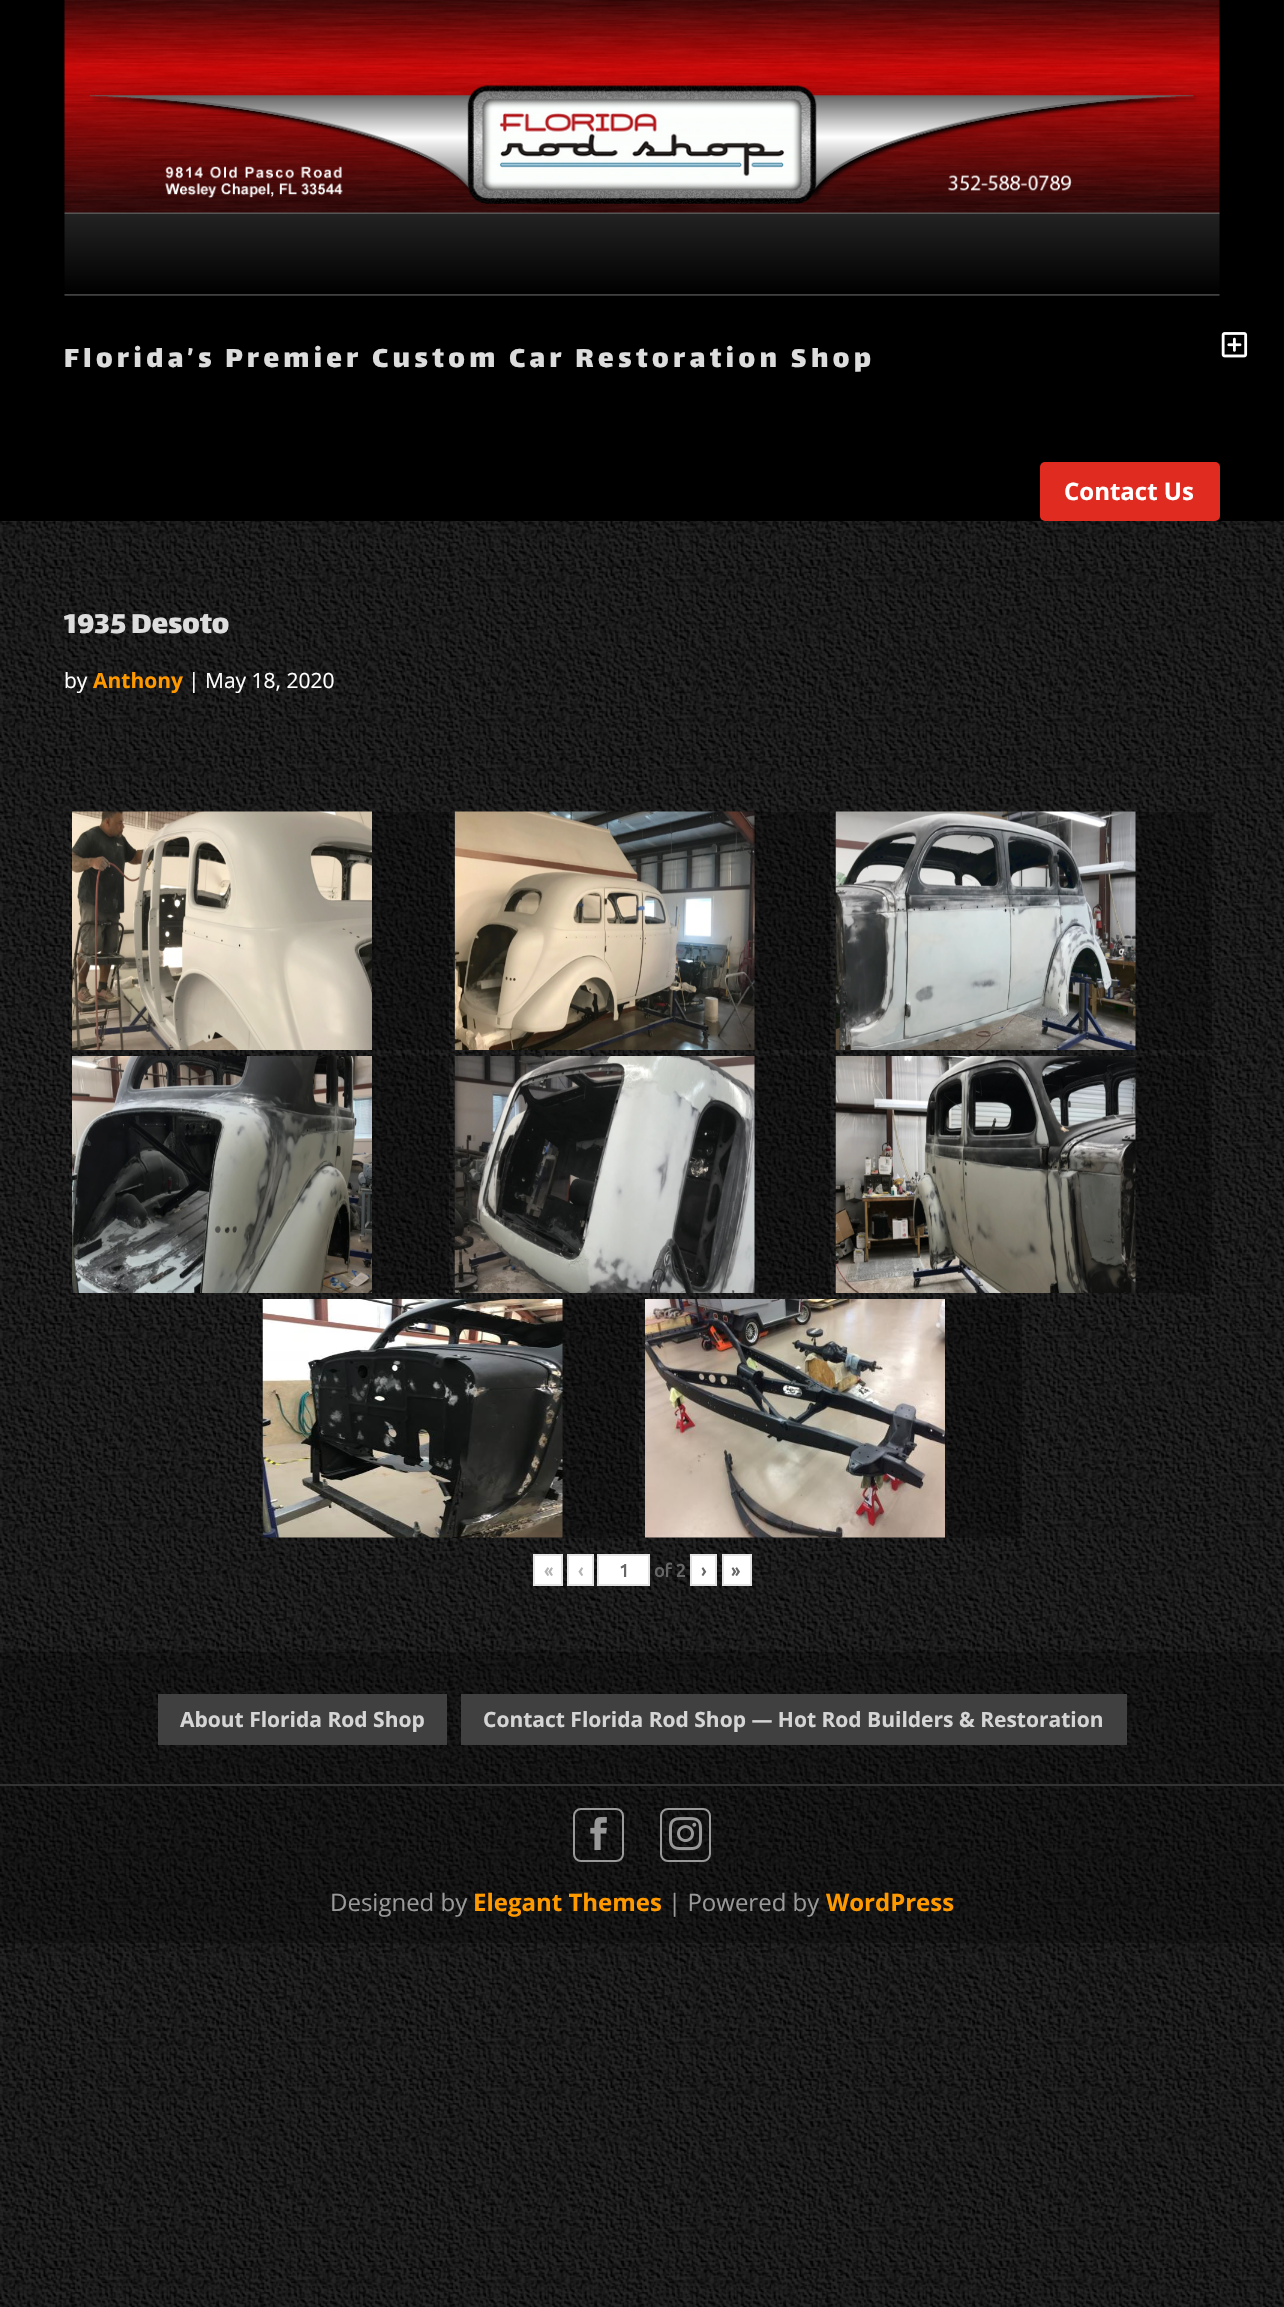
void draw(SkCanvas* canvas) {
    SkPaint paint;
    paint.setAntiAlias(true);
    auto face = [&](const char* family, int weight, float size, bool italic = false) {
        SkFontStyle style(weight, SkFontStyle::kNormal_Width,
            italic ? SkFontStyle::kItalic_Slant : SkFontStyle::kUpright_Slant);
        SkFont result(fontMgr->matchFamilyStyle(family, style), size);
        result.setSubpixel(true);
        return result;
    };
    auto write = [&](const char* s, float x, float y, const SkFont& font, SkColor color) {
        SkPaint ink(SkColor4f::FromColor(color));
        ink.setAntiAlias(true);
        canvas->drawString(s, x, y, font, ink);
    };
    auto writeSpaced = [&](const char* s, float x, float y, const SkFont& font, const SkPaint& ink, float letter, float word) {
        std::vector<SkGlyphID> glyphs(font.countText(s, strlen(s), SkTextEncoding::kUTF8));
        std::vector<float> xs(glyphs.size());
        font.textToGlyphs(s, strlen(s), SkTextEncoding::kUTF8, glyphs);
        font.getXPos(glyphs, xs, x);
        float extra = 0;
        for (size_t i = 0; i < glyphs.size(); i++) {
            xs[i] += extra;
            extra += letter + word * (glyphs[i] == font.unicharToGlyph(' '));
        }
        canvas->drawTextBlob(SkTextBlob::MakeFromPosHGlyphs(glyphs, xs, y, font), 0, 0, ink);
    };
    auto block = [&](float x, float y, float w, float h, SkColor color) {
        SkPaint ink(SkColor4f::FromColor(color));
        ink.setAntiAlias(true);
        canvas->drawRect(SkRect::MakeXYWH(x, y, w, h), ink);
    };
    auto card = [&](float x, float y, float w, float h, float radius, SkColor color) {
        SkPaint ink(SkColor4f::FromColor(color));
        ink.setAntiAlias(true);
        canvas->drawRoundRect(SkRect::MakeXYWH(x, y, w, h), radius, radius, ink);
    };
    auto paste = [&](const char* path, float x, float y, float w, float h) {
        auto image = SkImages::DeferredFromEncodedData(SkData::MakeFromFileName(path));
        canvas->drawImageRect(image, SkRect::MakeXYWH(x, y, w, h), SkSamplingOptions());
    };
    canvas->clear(SK_ColorWHITE);
    paste("pic1.png", 0, 521, 1284, 1786);
    block(0, 0, 1284, 521, SK_ColorBLACK);
    paste("pic2.png", 64, 0, 1156, 296);
    paste("pic3.png", 90, 85, 1108, 119);
    auto kFont1 = face("Lalezar", 400, 31.5f);
    paint.setColor(SkColorSetRGB(221, 221, 221));
    writeSpaced("Florida’s Premier Custom Car Restoration Shop", 64, 367, kFont1, paint, 4.5f, 0);
    card(1040, 462, 180, 59, 5, SkColorSetRGB(224, 43, 32));
    auto kFont2 = face("Open Sans", 700, 24);
    write("Contact Us", 1064, 500, kFont2, SK_ColorWHITE);
    paste("pic4.png", 1221, 332, 27, 26);
    auto kFont3 = face("Lalezar", 400, 33);
    write("1935 Desoto", 64, 633, kFont3, SkColorSetRGB(221, 221, 221));
    auto kFont4 = face("Open Sans", 400, 21);
    write("by", 64, 688, kFont4, SK_ColorWHITE);
    auto kFont5 = face("Open Sans", 700, 21);
    write("Anthony", 93, 688, kFont5, SkColorSetRGB(255, 153, 0));
    write("| May 18, 2020", 188, 688, kFont4, SK_ColorWHITE);
    block(372, 812, 77, 238, SkColorSetARGB(77, 0, 0, 0));
    paste("pic5.png", 72, 811, 300, 239);
    block(754, 812, 76, 238, SkColorSetARGB(77, 0, 0, 0));
    paste("pic6.png", 454, 811, 301, 239);
    block(1135, 812, 77, 238, SkColorSetARGB(77, 0, 0, 0));
    paste("pic7.png", 835, 811, 301, 239);
    block(372, 1056, 77, 237, SkColorSetARGB(77, 0, 0, 0));
    paste("pic8.png", 72, 1056, 300, 237);
    block(754, 1056, 76, 237, SkColorSetARGB(77, 0, 0, 0));
    paste("pic9.png", 454, 1056, 301, 237);
    block(1135, 1056, 77, 237, SkColorSetARGB(77, 0, 0, 0));
    paste("pic10.png", 835, 1056, 301, 237);
    block(263, 1299, 376, 239, SkColorSetARGB(77, 0, 0, 0));
    paste("pic11.png", 262, 1299, 301, 239);
    block(645, 1299, 377, 239, SkColorSetARGB(77, 0, 0, 0));
    paste("pic12.png", 645, 1299, 300, 239);
    paint.setColor(SK_ColorWHITE);
    canvas->drawRect(SkRect::MakeXYWH(534, 1555, 28, 30), paint);
    paint.setStyle(SkPaint::kStroke_Style);
    paint.setStrokeWidth(2);
    paint.setColor(SkColorSetRGB(227, 227, 227));
    canvas->drawRect(SkRect::MakeXYWH(534, 1555, 28, 30), paint);
    auto kFont6 = face("Ubuntu", 700, 18);
    write("«", 544, 1577, kFont6, SkColorSetRGB(179, 179, 179));
    paint.setStyle(SkPaint::kFill_Style);
    paint.setColor(SK_ColorWHITE);
    canvas->drawRect(SkRect::MakeXYWH(568, 1555, 25, 30), paint);
    paint.setStyle(SkPaint::kStroke_Style);
    paint.setColor(SkColorSetRGB(227, 227, 227));
    canvas->drawRect(SkRect::MakeXYWH(568, 1555, 25, 30), paint);
    write("‹", 578, 1577, kFont6, SkColorSetRGB(179, 179, 179));
    paint.setStyle(SkPaint::kFill_Style);
    paint.setColor(SK_ColorWHITE);
    canvas->drawRect(SkRect::MakeXYWH(598, 1555, 51, 30), paint);
    paint.setStyle(SkPaint::kStroke_Style);
    paint.setColor(SkColorSetRGB(227, 227, 227));
    canvas->drawRect(SkRect::MakeXYWH(598, 1555, 51, 30), paint);
    write("1", 619, 1577, kFont6, SkColorSetRGB(102, 102, 102));
    write("of 2", 654, 1577, kFont6, SkColorSetRGB(102, 102, 102));
    paint.setStyle(SkPaint::kFill_Style);
    paint.setColor(SK_ColorWHITE);
    canvas->drawRect(SkRect::MakeXYWH(691, 1555, 25, 30), paint);
    paint.setStyle(SkPaint::kStroke_Style);
    paint.setColor(SkColorSetRGB(227, 227, 227));
    canvas->drawRect(SkRect::MakeXYWH(691, 1555, 25, 30), paint);
    write("›", 701, 1577, kFont6, SkColorSetRGB(102, 102, 102));
    paint.setStyle(SkPaint::kFill_Style);
    paint.setColor(SK_ColorWHITE);
    canvas->drawRect(SkRect::MakeXYWH(723, 1555, 28, 30), paint);
    paint.setStyle(SkPaint::kStroke_Style);
    paint.setColor(SkColorSetRGB(227, 227, 227));
    canvas->drawRect(SkRect::MakeXYWH(723, 1555, 28, 30), paint);
    write("»", 731, 1577, kFont6, SkColorSetRGB(102, 102, 102));
    block(0, 1652, 1284, 132, SkColorSetARGB(69, 0, 0, 0));
    block(158, 1694, 289, 51, SkColorSetRGB(64, 64, 64));
    write("About Florida Rod Shop", 180, 1727, kFont5, SkColorSetRGB(213, 213, 213));
    block(461, 1694, 666, 51, SkColorSetRGB(64, 64, 64));
    write("Contact Florida Rod Shop — Hot Rod Builders & Restoration", 483, 1727, kFont5, SkColorSetRGB(213, 213, 213));
    block(0, 1786, 1284, 157, SkColorSetARGB(69, 0, 0, 0));
    block(0, 1784, 1284, 2, SkColorSetRGB(51, 51, 51));
    paint.setColor(SkColorSetRGB(153, 153, 153));
    canvas->drawRoundRect(SkRect::MakeXYWH(574, 1809, 49, 52), 7, 7, paint);
    paste("pic13.png", 590, 1817, 17, 34);
    canvas->drawRoundRect(SkRect::MakeXYWH(661, 1809, 49, 52), 7, 7, paint);
    paste("pic14.png", 669, 1817, 33, 34);
    auto kFont7 = face("Open Sans", 400, 24);
    write("Designed by", 330, 1911, kFont7, SkColorSetRGB(153, 153, 153));
    write("Elegant Themes", 473, 1911, kFont2, SkColorSetRGB(255, 153, 0));
    write("| Powered by", 668, 1911, kFont7, SkColorSetRGB(153, 153, 153));
    write("WordPress", 826, 1911, kFont2, SkColorSetRGB(255, 153, 0));
}
